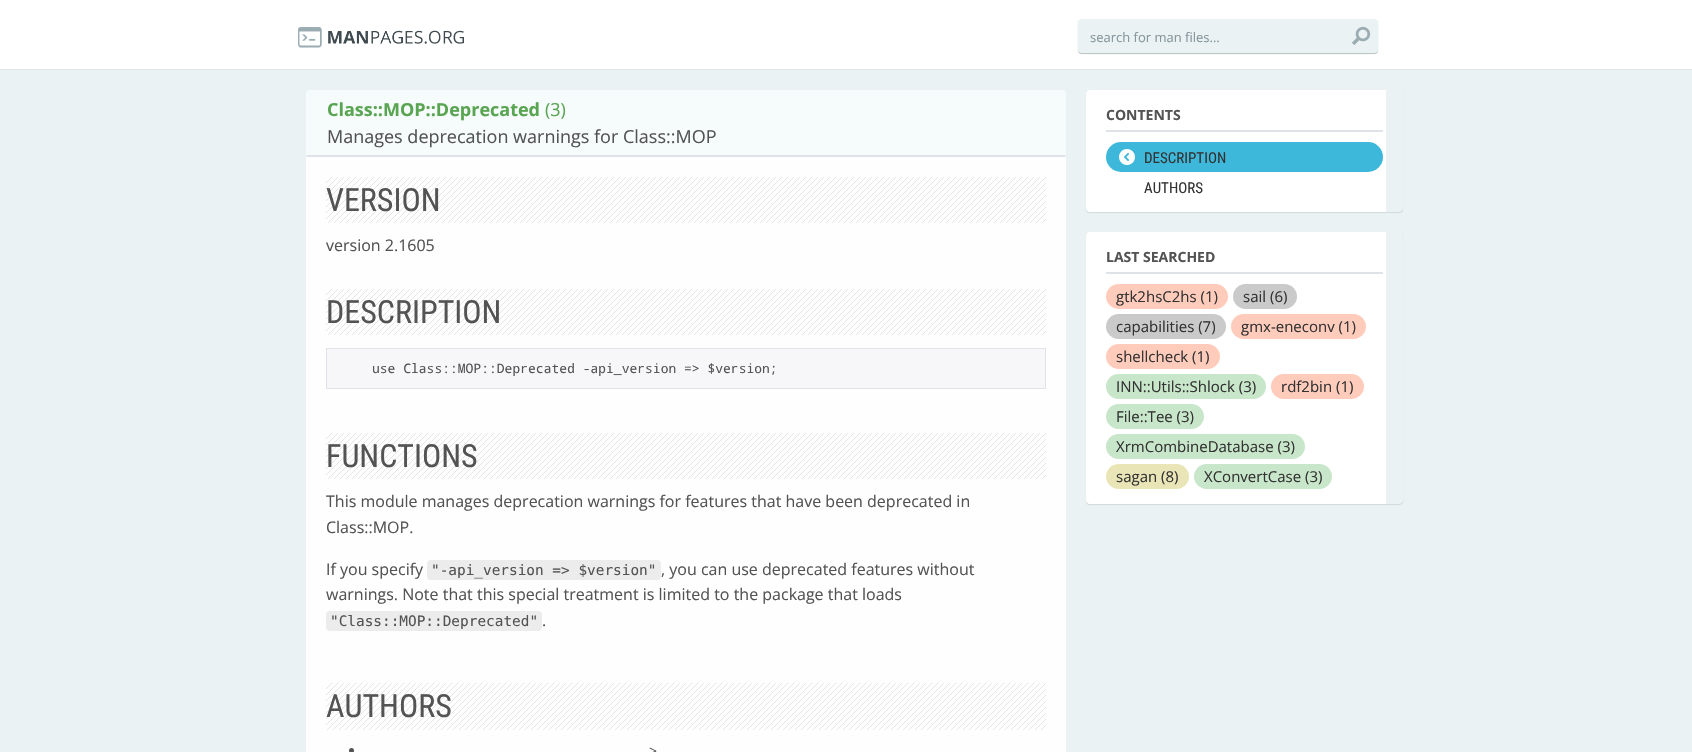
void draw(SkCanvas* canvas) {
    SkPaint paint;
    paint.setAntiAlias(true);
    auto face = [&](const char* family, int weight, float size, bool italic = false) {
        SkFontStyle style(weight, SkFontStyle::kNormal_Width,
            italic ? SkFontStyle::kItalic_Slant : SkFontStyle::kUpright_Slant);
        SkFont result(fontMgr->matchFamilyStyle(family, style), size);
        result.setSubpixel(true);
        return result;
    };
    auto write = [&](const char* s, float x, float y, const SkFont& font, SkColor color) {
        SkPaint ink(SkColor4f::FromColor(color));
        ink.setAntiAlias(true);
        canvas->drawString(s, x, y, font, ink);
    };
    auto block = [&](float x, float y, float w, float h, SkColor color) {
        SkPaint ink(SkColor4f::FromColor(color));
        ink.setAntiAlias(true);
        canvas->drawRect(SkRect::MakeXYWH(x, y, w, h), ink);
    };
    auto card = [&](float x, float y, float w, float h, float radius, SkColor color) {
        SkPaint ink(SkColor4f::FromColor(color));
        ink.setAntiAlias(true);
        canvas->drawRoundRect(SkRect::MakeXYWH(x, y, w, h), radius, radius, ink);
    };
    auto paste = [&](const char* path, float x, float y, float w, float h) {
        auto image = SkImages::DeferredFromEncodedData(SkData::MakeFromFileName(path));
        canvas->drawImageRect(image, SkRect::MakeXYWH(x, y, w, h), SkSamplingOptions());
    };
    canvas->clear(SkColorSetRGB(234, 242, 244));
    block(0, 0, 1692, 69, SK_ColorWHITE);
    block(0, 69, 1692, 1, SkColorSetRGB(220, 229, 231));
    paste("pic1.png", 298, 27, 166, 21);
    paint.setColor(SkColorSetARGB(77, 6, 47, 55));
    paint.setMaskFilter(SkMaskFilter::MakeBlur(kNormal_SkBlurStyle, 0.5f));
    canvas->drawRoundRect(SkRect::MakeXYWH(1078, 20, 300, 34), 4, 4, paint);
    paint.setMaskFilter(nullptr);
    card(1078, 19, 300, 34, 4, SkColorSetRGB(234, 242, 244));
    auto kFont1 = face("Open Sans", 400, 13);
    write("search for man files...", 1090, 42, kFont1, SkColorSetRGB(134, 150, 157));
    paste("pic2.png", 1352, 26, 19, 19);
    paint.setColor(SkColorSetRGB(254, 254, 254));
    canvas->drawPath(SkPathBuilder().moveTo(310, 90).lineTo(1062, 90).cubicTo(1064, 90, 1066, 92, 1066, 94).lineTo(1066, 752).lineTo(306, 752).lineTo(306, 94).cubicTo(306, 92, 308, 90, 310, 90).close().detach(), paint);
    paint.setColor(SkColorSetRGB(246, 251, 252));
    canvas->drawPath(SkPathBuilder().moveTo(309, 90).lineTo(1063, 90).cubicTo(1064.5f, 90, 1066, 91.5f, 1066, 93).lineTo(1066, 157).lineTo(306, 157).lineTo(306, 93).cubicTo(306, 91.5f, 307.5f, 90, 309, 90).close().detach(), paint);
    paint.setColor(SkColorSetRGB(223, 227, 233));
    canvas->drawPath(SkPathBuilder().moveTo(1066, 157).lineTo(1065, 155).lineTo(307, 155).lineTo(306, 157).close().detach(), paint);
    auto kFont2 = face("Open Sans", 700, 18);
    write("Class::MOP::Deprecated", 327, 116, kFont2, SkColorSetRGB(89, 165, 82));
    auto kFont3 = face("Open Sans", 400, 18);
    write("(3)", 545, 116, kFont3, SkColorSetRGB(89, 165, 82));
    write("Manages deprecation warnings for Class::MOP", 327, 143, kFont3, SkColorSetRGB(83, 83, 83));
    paste("pic3.png", 326, 177, 720, 46);
    auto kFont4 = face("Roboto Condensed", 400, 32);
    write("VERSION", 326, 211, kFont4, SkColorSetRGB(83, 83, 83));
    auto kFont5 = face("Open Sans", 400, 16);
    write("version 2.1605", 326, 251, kFont5, SkColorSetRGB(83, 83, 83));
    paste("pic3.png", 326, 289, 720, 46);
    write("DESCRIPTION", 326, 323, kFont4, SkColorSetRGB(83, 83, 83));
    paint.setColor(SkColorSetRGB(247, 247, 249));
    canvas->drawRect(SkRect::MakeXYWH(326.5f, 348.5f, 719, 40), paint);
    paint.setStyle(SkPaint::kStroke_Style);
    paint.setStrokeWidth(1);
    paint.setColor(SkColorSetRGB(225, 225, 232));
    canvas->drawRect(SkRect::MakeXYWH(326.5f, 348.5f, 719, 40), paint);
    auto kFont6 = face("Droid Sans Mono", 400, 13);
    write("use Class::MOP::Deprecated -api_version => $version;", 372, 373, kFont6, SkColorSetRGB(83, 83, 83));
    paste("pic3.png", 326, 433, 720, 46);
    write("FUNCTIONS", 326, 467, kFont4, SkColorSetRGB(83, 83, 83));
    write("This module manages deprecation warnings for features that have been deprecated in", 326, 507, kFont5, SkColorSetRGB(83, 83, 83));
    write("Class::MOP.", 326, 533, kFont5, SkColorSetRGB(83, 83, 83));
    write("If you specify", 326, 575, kFont5, SkColorSetRGB(83, 83, 83));
    card(427, 560, 234, 20, 4, SkColorSetRGB(236, 236, 236));
    auto kFont7 = face("DejaVu Sans Mono", 400, 14.4f);
    write("\"-api_version => $version\"", 431, 575, kFont7, SkColorSetRGB(83, 83, 83));
    write(", you can use deprecated features without", 661, 575, kFont5, SkColorSetRGB(83, 83, 83));
    write("warnings. Note that this special treatment is limited to the package that loads", 326, 600, kFont5, SkColorSetRGB(83, 83, 83));
    card(326, 611, 216, 20, 4, SkColorSetRGB(236, 236, 236));
    write("\"Class::MOP::Deprecated\"", 330, 626, kFont7, SkColorSetRGB(83, 83, 83));
    write(".", 542, 626, kFont5, SkColorSetRGB(83, 83, 83));
    paste("pic4.png", 326, 683, 720, 47);
    write("AUTHORS", 326, 717, kFont4, SkColorSetRGB(83, 83, 83));
    paint.setStyle(SkPaint::kFill_Style);
    paint.setColor(SkColorSetRGB(83, 83, 83));
    canvas->drawCircle(351.5f, 750.5f, 2.5f, paint);
    auto kFont8 = face("Open Sans", 400, 14);
    write(">", 649, 756, kFont8, SkColorSetRGB(83, 83, 83));
    canvas->save();
    canvas->clipPath(SkPathBuilder(SkPathFillType::kEvenOdd).moveTo(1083, 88).lineTo(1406, 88).lineTo(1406, 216).lineTo(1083, 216).close().moveTo(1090, 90).lineTo(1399, 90).cubicTo(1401, 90, 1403, 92, 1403, 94).lineTo(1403, 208).cubicTo(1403, 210, 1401, 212, 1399, 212).lineTo(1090, 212).cubicTo(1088, 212, 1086, 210, 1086, 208).lineTo(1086, 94).cubicTo(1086, 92, 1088, 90, 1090, 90).close().detach(), true);
    paint.setColor(SkColorSetARGB(26, 0, 0, 0));
    paint.setMaskFilter(SkMaskFilter::MakeBlur(kNormal_SkBlurStyle, 0.5f));
    canvas->drawRoundRect(SkRect::MakeXYWH(1086, 91, 317, 122), 4, 4, paint);
    paint.setMaskFilter(nullptr);
    canvas->restore();
    paint.setColor(SK_ColorWHITE);
    canvas->drawPath(SkPathBuilder().moveTo(1090, 90).lineTo(1386, 90).lineTo(1386, 212).lineTo(1090, 212).cubicTo(1088, 212, 1086, 210, 1086, 208).lineTo(1086, 94).cubicTo(1086, 92, 1088, 90, 1090, 90).close().detach(), paint);
    block(1106, 130, 277, 2, SkColorSetRGB(223, 227, 233));
    auto kFont9 = face("Open Sans", 700, 14);
    write("CONTENTS", 1106, 120, kFont9, SkColorSetRGB(83, 83, 83));
    card(1106, 142, 277, 30, 15, SkColorSetRGB(61, 184, 219));
    paste("pic5.png", 1119, 149, 16, 16);
    auto kFont10 = face("Roboto Condensed", 400, 15);
    write("DESCRIPTION", 1144, 163, kFont10, SkColorSetRGB(51, 51, 51));
    write("AUTHORS", 1144, 193, kFont10, SkColorSetRGB(51, 51, 51));
    canvas->save();
    canvas->clipPath(SkPathBuilder(SkPathFillType::kEvenOdd).moveTo(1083, 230).lineTo(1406, 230).lineTo(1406, 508).lineTo(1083, 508).close().moveTo(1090, 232).lineTo(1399, 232).cubicTo(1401, 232, 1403, 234, 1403, 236).lineTo(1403, 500).cubicTo(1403, 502, 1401, 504, 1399, 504).lineTo(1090, 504).cubicTo(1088, 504, 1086, 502, 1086, 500).lineTo(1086, 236).cubicTo(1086, 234, 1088, 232, 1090, 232).close().detach(), true);
    paint.setColor(SkColorSetARGB(26, 0, 0, 0));
    paint.setMaskFilter(SkMaskFilter::MakeBlur(kNormal_SkBlurStyle, 0.5f));
    canvas->drawRoundRect(SkRect::MakeXYWH(1086, 233, 317, 272), 4, 4, paint);
    paint.setMaskFilter(nullptr);
    canvas->restore();
    paint.setColor(SK_ColorWHITE);
    canvas->drawPath(SkPathBuilder().moveTo(1090, 232).lineTo(1386, 232).lineTo(1386, 504).lineTo(1090, 504).cubicTo(1088, 504, 1086, 502, 1086, 500).lineTo(1086, 236).cubicTo(1086, 234, 1088, 232, 1090, 232).close().detach(), paint);
    block(1106, 272, 277, 2, SkColorSetRGB(223, 227, 233));
    write("LAST SEARCHED", 1106, 262, kFont9, SkColorSetRGB(83, 83, 83));
    card(1106, 284, 122, 25, 12.5f, SkColorSetRGB(255, 204, 188));
    auto kFont11 = face("Open Sans", 400, 15);
    write("gtk2hsC2hs (1)", 1116, 302, kFont11, SkColorSetRGB(51, 51, 51));
    card(1233, 284, 64, 25, 12.5f, SkColorSetRGB(202, 202, 202));
    write("sail (6)", 1243, 302, kFont11, SkColorSetRGB(51, 51, 51));
    card(1106, 314, 120, 25, 12.5f, SkColorSetRGB(202, 202, 202));
    write("capabilities (7)", 1116, 332, kFont11, SkColorSetRGB(51, 51, 51));
    card(1231, 314, 135, 25, 12.5f, SkColorSetRGB(255, 204, 188));
    write("gmx-eneconv (1)", 1241, 332, kFont11, SkColorSetRGB(51, 51, 51));
    card(1106, 344, 114, 25, 12.5f, SkColorSetRGB(255, 204, 188));
    write("shellcheck (1)", 1116, 362, kFont11, SkColorSetRGB(51, 51, 51));
    card(1106, 374, 160, 25, 12.5f, SkColorSetRGB(200, 230, 201));
    write("INN::Utils::Shlock (3)", 1116, 392, kFont11, SkColorSetRGB(51, 51, 51));
    card(1271, 374, 93, 25, 12.5f, SkColorSetRGB(255, 204, 188));
    write("rdf2bin (1)", 1281, 392, kFont11, SkColorSetRGB(51, 51, 51));
    card(1106, 404, 98, 25, 12.5f, SkColorSetRGB(200, 230, 201));
    write("File::Tee (3)", 1116, 422, kFont11, SkColorSetRGB(51, 51, 51));
    card(1106, 434, 199, 25, 12.5f, SkColorSetRGB(200, 230, 201));
    write("XrmCombineDatabase (3)", 1116, 452, kFont11, SkColorSetRGB(51, 51, 51));
    card(1106, 464, 83, 25, 12.5f, SkColorSetRGB(234, 229, 183));
    write("sagan (8)", 1116, 482, kFont11, SkColorSetRGB(51, 51, 51));
    card(1194, 464, 138, 25, 12.5f, SkColorSetRGB(200, 230, 201));
    write("XConvertCase (3)", 1204, 482, kFont11, SkColorSetRGB(51, 51, 51));
}
